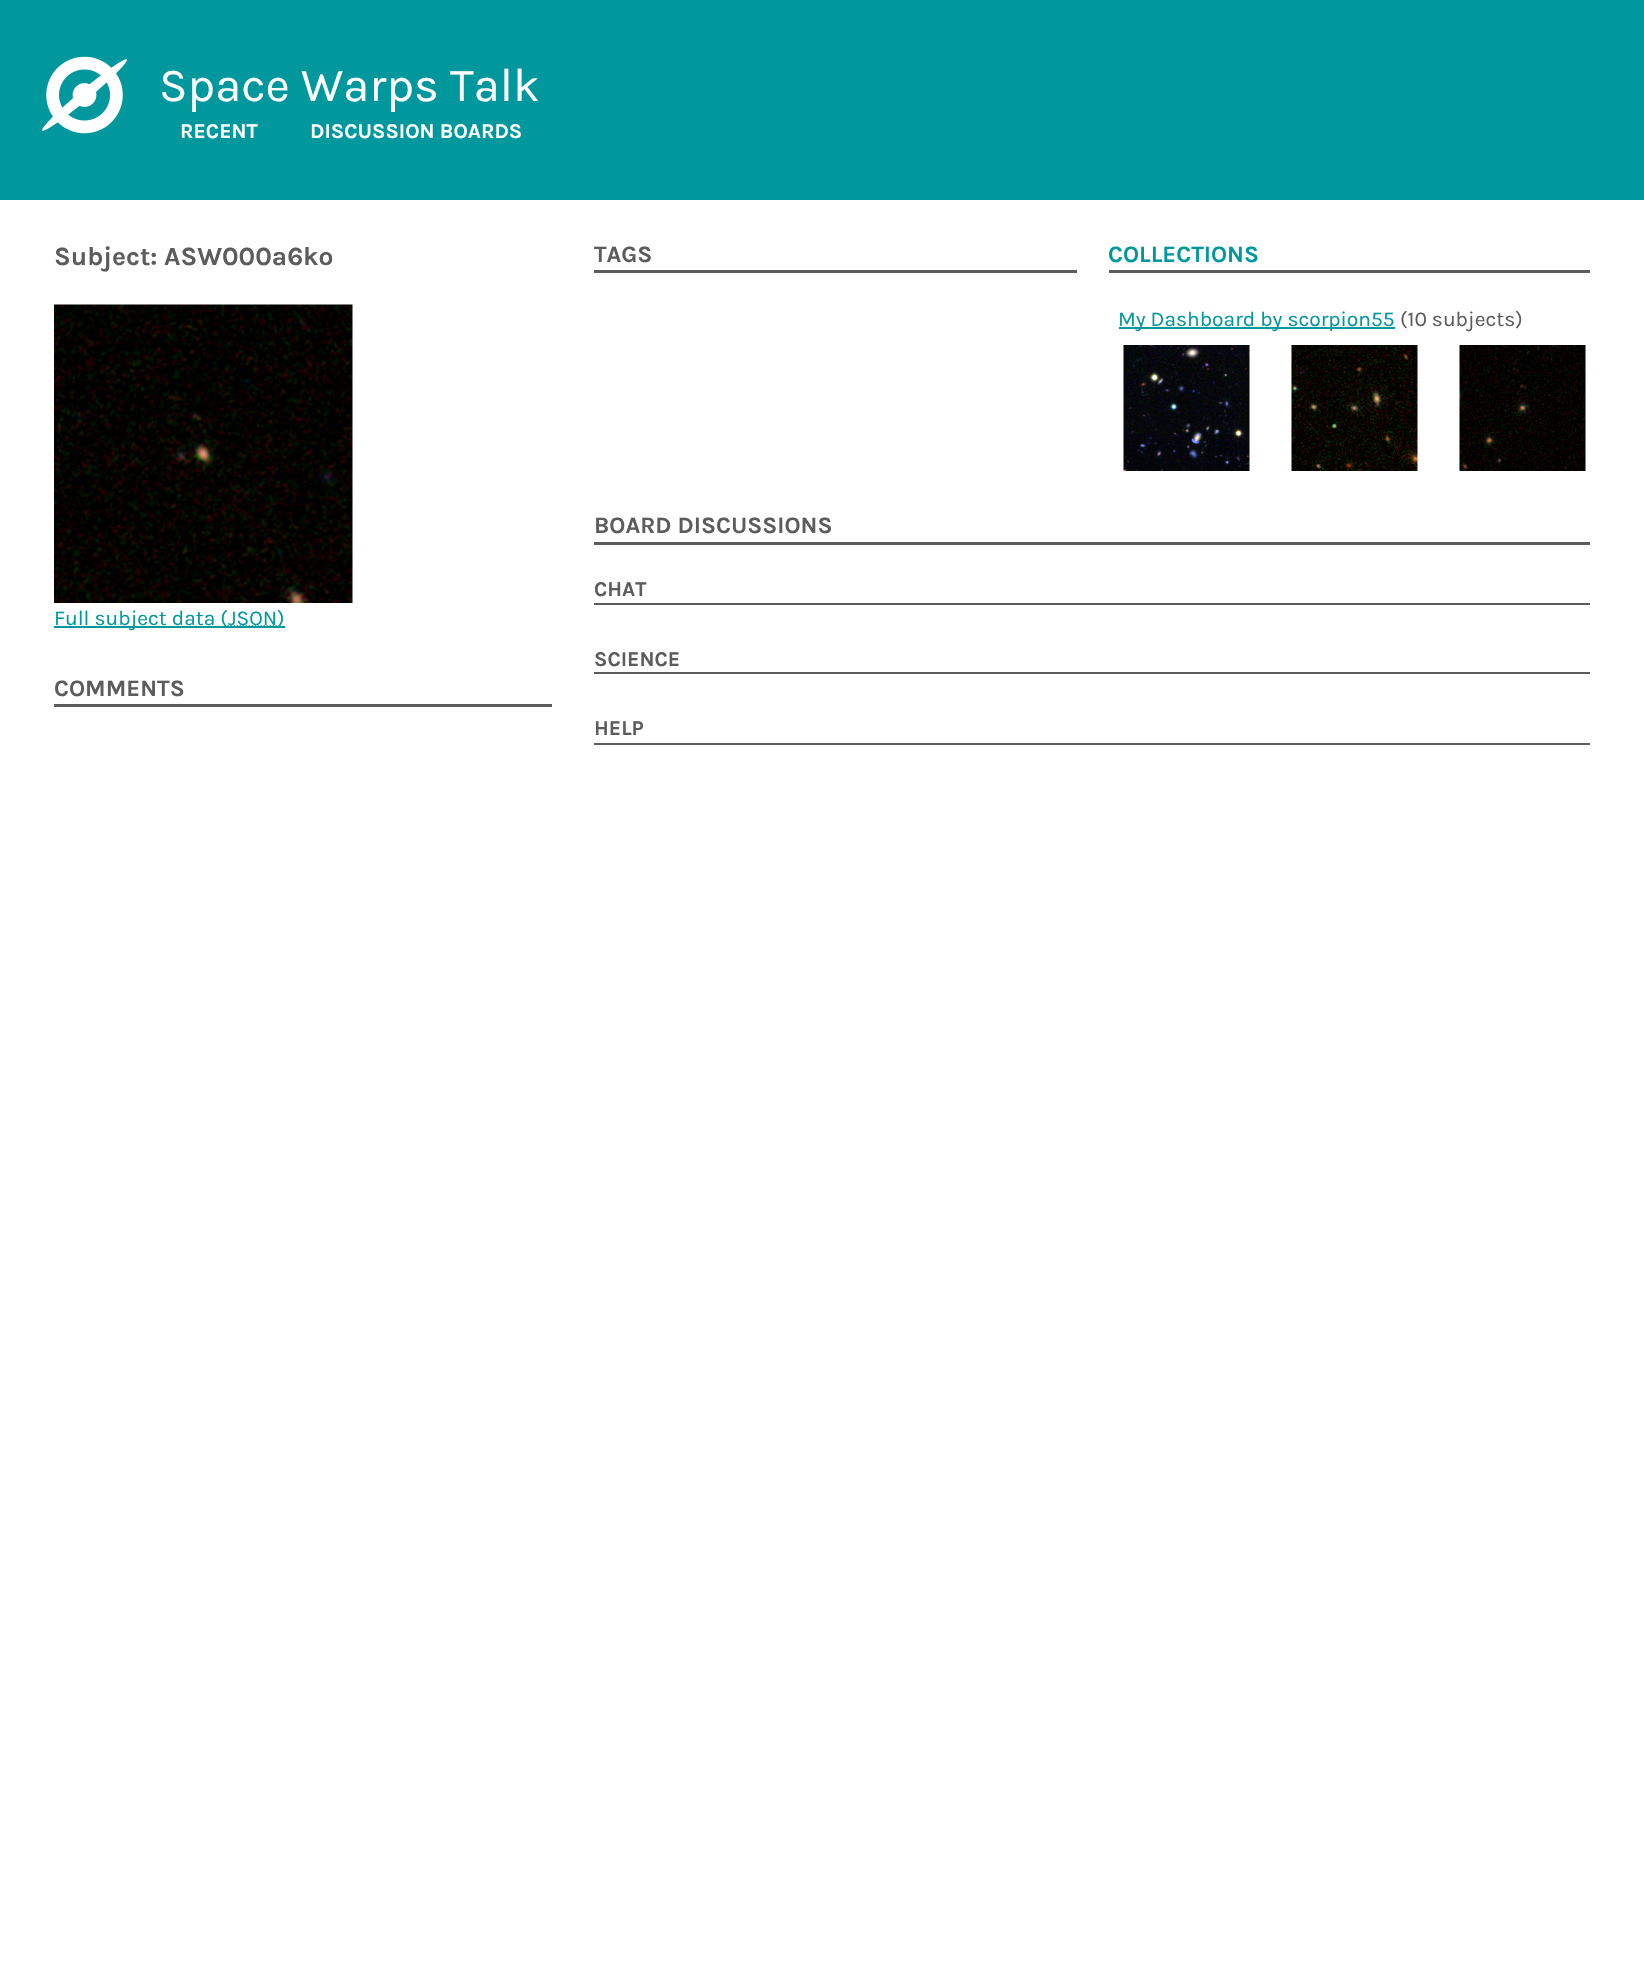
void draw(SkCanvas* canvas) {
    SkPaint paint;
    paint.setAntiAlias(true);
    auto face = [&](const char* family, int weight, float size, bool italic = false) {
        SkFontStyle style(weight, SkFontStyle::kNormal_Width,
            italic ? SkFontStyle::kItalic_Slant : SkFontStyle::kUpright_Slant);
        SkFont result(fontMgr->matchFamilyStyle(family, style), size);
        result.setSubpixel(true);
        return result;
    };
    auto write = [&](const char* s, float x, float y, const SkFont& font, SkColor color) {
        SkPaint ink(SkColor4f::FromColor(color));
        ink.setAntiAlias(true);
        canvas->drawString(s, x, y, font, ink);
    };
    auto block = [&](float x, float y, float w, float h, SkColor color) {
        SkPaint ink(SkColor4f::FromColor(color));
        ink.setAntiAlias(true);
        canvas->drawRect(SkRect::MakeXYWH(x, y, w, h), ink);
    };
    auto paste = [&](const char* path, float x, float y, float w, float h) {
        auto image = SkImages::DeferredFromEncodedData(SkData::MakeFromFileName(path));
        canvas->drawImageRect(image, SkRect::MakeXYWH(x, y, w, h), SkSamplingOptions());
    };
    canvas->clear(SK_ColorWHITE);
    block(0, 0, 1644, 200, SkColorSetRGB(0, 151, 157));
    paste("pic1.png", 42, 56, 85, 78);
    auto kFont1 = face("Karla", 400, 47.25f);
    write("Space Warps Talk", 159, 101, kFont1, SK_ColorWHITE);
    auto kFont2 = face("Karla", 700, 21);
    write("RECENT", 180, 138, kFont2, SK_ColorWHITE);
    write("DISCUSSION BOARDS", 310, 138, kFont2, SK_ColorWHITE);
    auto kFont3 = face("Karla", 700, 26.25f);
    write("Subject: ASW000a6ko", 54, 265, kFont3, SkColorSetRGB(92, 92, 92));
    paste("pic2.png", 54, 304, 299, 299);
    block(54, 626, 174, 2, SkColorSetRGB(0, 151, 157));
    auto kFont4 = face("Karla", 400, 21);
    write("Full subject data (", 54, 625, kFont4, SkColorSetRGB(0, 151, 157));
    paint.setStyle(SkPaint::kStroke_Style);
    paint.setStrokeWidth(1.5f);
    paint.setColor(SkColorSetRGB(0, 151, 157));
    paint.setPathEffect(SkDashPathEffect::Make({{1.5f, 1.5f}}, 0));
    canvas->drawPath(SkPathBuilder().moveTo(227.5f, 626).lineTo(277, 626).detach(), paint);
    paint.setPathEffect(nullptr);
    block(228, 626, 57, 2, SkColorSetRGB(0, 151, 157));
    write("JSON)", 228, 625, kFont4, SkColorSetRGB(0, 151, 157));
    block(54, 704, 498, 3, SkColorSetRGB(92, 92, 92));
    auto kFont5 = face("Karla", 700, 23.6f);
    write("COMMENTS", 54, 696, kFont5, SkColorSetRGB(92, 92, 92));
    block(594, 270, 483, 3, SkColorSetRGB(92, 92, 92));
    write("TAGS", 594, 262, kFont5, SkColorSetRGB(92, 92, 92));
    block(1109, 270, 481, 3, SkColorSetRGB(92, 92, 92));
    write("COLLECTIONS", 1108, 262, kFont5, SkColorSetRGB(0, 151, 157));
    block(1119, 327, 276, 2, SkColorSetRGB(0, 151, 157));
    write("My Dashboard by scorpion55", 1118, 326, kFont4, SkColorSetRGB(0, 151, 157));
    write("(10 subjects)", 1400, 326, kFont4, SkColorSetRGB(92, 92, 92));
    paste("pic3.png", 1123, 345, 127, 126);
    paste("pic4.png", 1291, 345, 127, 126);
    paste("pic5.png", 1459, 345, 127, 126);
    block(594, 542, 996, 3, SkColorSetRGB(92, 92, 92));
    write("BOARD DISCUSSIONS", 594, 533, kFont5, SkColorSetRGB(92, 92, 92));
    block(594, 603, 996, 2, SkColorSetRGB(92, 92, 92));
    write("CHAT", 594, 596, kFont2, SkColorSetRGB(92, 92, 92));
    block(594, 672, 996, 2, SkColorSetRGB(92, 92, 92));
    write("SCIENCE", 594, 666, kFont2, SkColorSetRGB(92, 92, 92));
    block(594, 743, 996, 2, SkColorSetRGB(92, 92, 92));
    write("HELP", 594, 735, kFont2, SkColorSetRGB(92, 92, 92));
}
